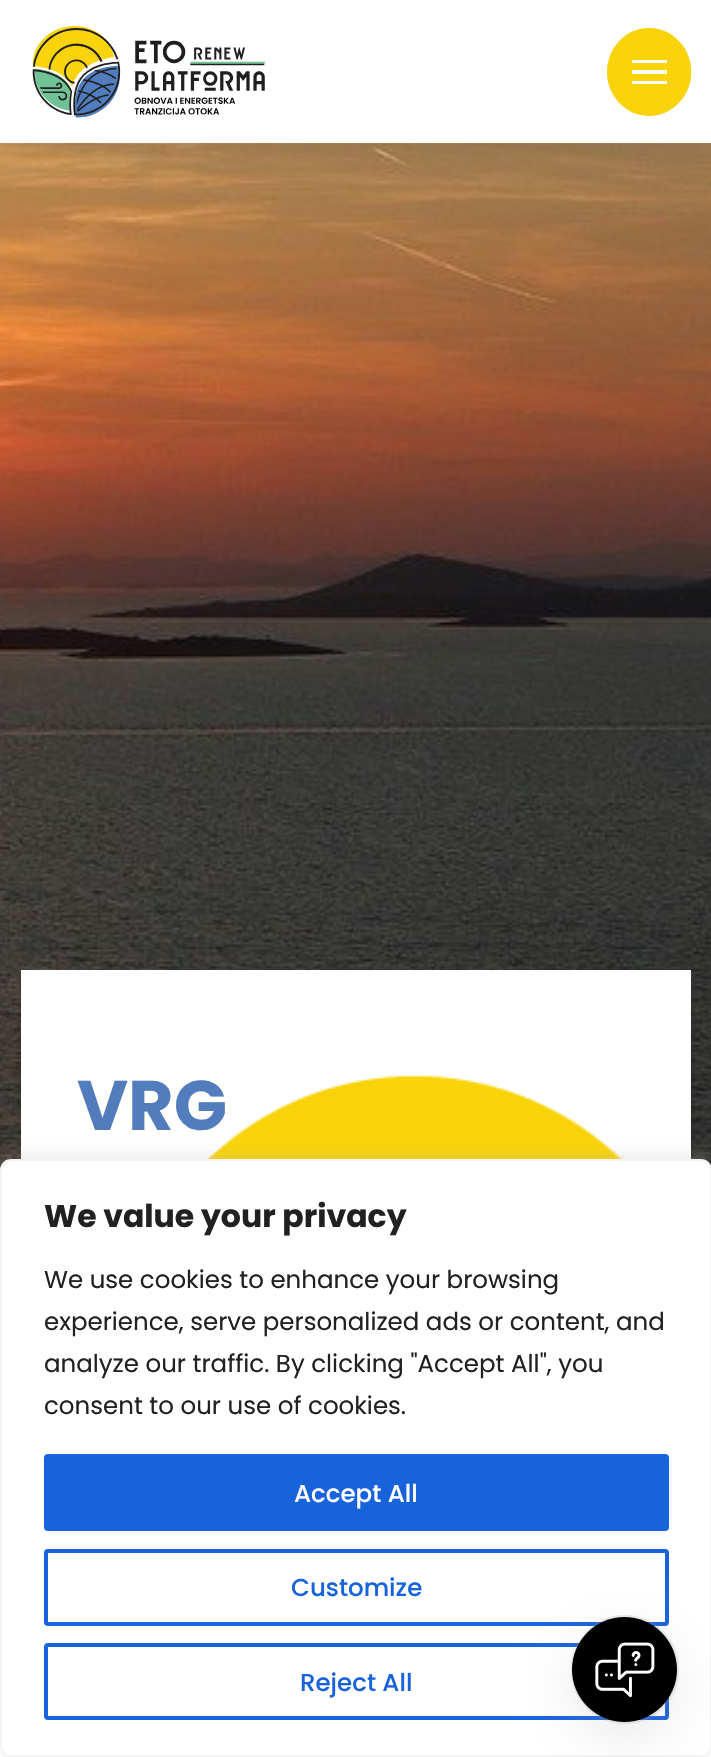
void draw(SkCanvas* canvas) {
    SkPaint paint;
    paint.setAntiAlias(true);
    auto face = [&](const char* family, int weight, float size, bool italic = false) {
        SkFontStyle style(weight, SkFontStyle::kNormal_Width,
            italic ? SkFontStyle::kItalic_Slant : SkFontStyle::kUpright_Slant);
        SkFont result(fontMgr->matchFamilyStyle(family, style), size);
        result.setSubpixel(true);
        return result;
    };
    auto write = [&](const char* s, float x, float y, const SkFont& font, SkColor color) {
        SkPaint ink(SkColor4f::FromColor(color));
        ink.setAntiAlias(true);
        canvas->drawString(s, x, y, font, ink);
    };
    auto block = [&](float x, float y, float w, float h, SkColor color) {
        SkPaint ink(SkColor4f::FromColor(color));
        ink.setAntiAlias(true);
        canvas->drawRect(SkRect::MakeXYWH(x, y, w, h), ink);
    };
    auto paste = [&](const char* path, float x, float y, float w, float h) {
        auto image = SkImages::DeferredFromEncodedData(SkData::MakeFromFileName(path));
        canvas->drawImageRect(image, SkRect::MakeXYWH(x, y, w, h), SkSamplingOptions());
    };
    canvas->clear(SK_ColorWHITE);
    paste("pic2.png", 0, 143, 711, 1027);
    canvas->save();
    canvas->clipPath(SkPathBuilder(SkPathFillType::kEvenOdd).moveTo(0, 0).lineTo(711, 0).lineTo(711, 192).lineTo(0, 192).close().moveTo(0, 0).lineTo(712, 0).lineTo(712, 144).lineTo(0, 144).close().detach(), true);
    paint.setColor(SkColorSetARGB(20, 0, 0, 0));
    paint.setMaskFilter(SkMaskFilter::MakeBlur(kNormal_SkBlurStyle, 13));
    canvas->drawRect(SkRect::MakeXYWH(0, 9, 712, 143), paint);
    paint.setMaskFilter(nullptr);
    canvas->restore();
    paste("pic1.png", 32, 26, 233, 92);
    paint.setColor(SkColorSetRGB(249, 211, 9));
    canvas->drawOval(SkRect::MakeXYWH(607, 28, 84, 88), paint);
    paint.setStyle(SkPaint::kStroke_Style);
    paint.setStrokeWidth(3.5f);
    canvas->drawPath(SkPathBuilder().moveTo(649, 30).cubicTo(671.5f, 30, 689.5f, 48.5f, 689.5f, 72).cubicTo(689.5f, 95, 671.5f, 114, 649, 114).cubicTo(627, 114, 609, 95, 609, 72).cubicTo(609, 48.5f, 627, 30, 649, 30).close().detach(), paint);
    block(632, 60, 35, 3, SK_ColorWHITE);
    block(632, 70, 35, 4, SK_ColorWHITE);
    block(632, 81, 35, 3, SK_ColorWHITE);
    paint.setStyle(SkPaint::kFill_Style);
    paint.setColor(SkColorSetARGB(64, 0, 0, 0));
    paint.setMaskFilter(SkMaskFilter::MakeBlur(kNormal_SkBlurStyle, 3.5f));
    canvas->drawRect(SkRect::MakeXYWH(21, 977, 670, 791), paint);
    paint.setMaskFilter(nullptr);
    block(21, 970, 670, 189, SK_ColorWHITE);
    auto kFont1 = face("Poppins", 700, 70);
    write("VRG", 77, 1130, kFont1, SkColorSetRGB(82, 124, 187));
    paste("pic3.png", 206, 1074, 418, 85);
    paint.setColor(SkColorSetARGB(77, 172, 171, 171));
    paint.setMaskFilter(SkMaskFilter::MakeBlur(kNormal_SkBlurStyle, 9));
    canvas->drawRoundRect(SkRect::MakeXYWH(0, 1157, 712, 598), 11, 11, paint);
    paint.setMaskFilter(nullptr);
    paint.setColor(SK_ColorWHITE);
    canvas->drawRoundRect(SkRect::MakeXYWH(1, 1160, 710, 596), 10, 10, paint);
    paint.setStyle(SkPaint::kStroke_Style);
    paint.setStrokeWidth(2);
    paint.setColor(SkColorSetRGB(244, 244, 244));
    canvas->drawRoundRect(SkRect::MakeXYWH(1, 1160, 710, 596), 10, 10, paint);
    auto kFont2 = face("Poppins", 700, 31.5f);
    write("We value your privacy", 44, 1227, kFont2, SkColorSetRGB(33, 33, 33));
    auto kFont3 = face("Poppins", 400, 24.5f);
    write("We use cookies to enhance your browsing", 44, 1288, kFont3, SkColorSetRGB(33, 33, 33));
    write("experience, serve personalized ads or content, and", 44, 1330, kFont3, SkColorSetRGB(33, 33, 33));
    write("analyze our traffic. By clicking \"Accept All\", you", 44, 1372, kFont3, SkColorSetRGB(33, 33, 33));
    write("consent to our use of cookies.", 44, 1414, kFont3, SkColorSetRGB(33, 33, 33));
    paint.setStyle(SkPaint::kFill_Style);
    paint.setColor(SkColorSetRGB(24, 99, 220));
    canvas->drawRoundRect(SkRect::MakeXYWH(46, 1456, 621, 73), 2, 2, paint);
    paint.setStyle(SkPaint::kStroke_Style);
    paint.setStrokeWidth(4);
    canvas->drawRoundRect(SkRect::MakeXYWH(46, 1456, 621, 73), 2, 2, paint);
    auto kFont4 = face("Poppins", 500, 24.5f);
    write("Accept All", 294, 1502, kFont4, SK_ColorWHITE);
    canvas->drawRoundRect(SkRect::MakeXYWH(46, 1551, 621, 73), 2, 2, paint);
    write("Customize", 291, 1596, kFont4, SkColorSetRGB(24, 99, 220));
    canvas->drawRoundRect(SkRect::MakeXYWH(46, 1645, 621, 73), 2, 2, paint);
    write("Reject All", 300, 1691, kFont4, SkColorSetRGB(24, 99, 220));
    paint.setStrokeWidth(2);
    paint.setColor(SkColorSetARGB(51, 150, 150, 150));
    canvas->drawRoundRect(SkRect::MakeXYWH(572, 1616, 106, 107), 53, 53, paint);
    paint.setStyle(SkPaint::kFill_Style);
    paint.setMaskFilter(SkMaskFilter::MakeBlur(kNormal_SkBlurStyle, 26));
    canvas->drawRoundRect(SkRect::MakeXYWH(572, 1635, 105, 105), 52.5f, 52.5f, paint);
    paint.setMaskFilter(nullptr);
    paint.setColor(SK_ColorBLACK);
    canvas->drawCircle(624.5f, 1669.5f, 52.5f, paint);
    paste("pic4.png", 595, 1642, 60, 56);
}
